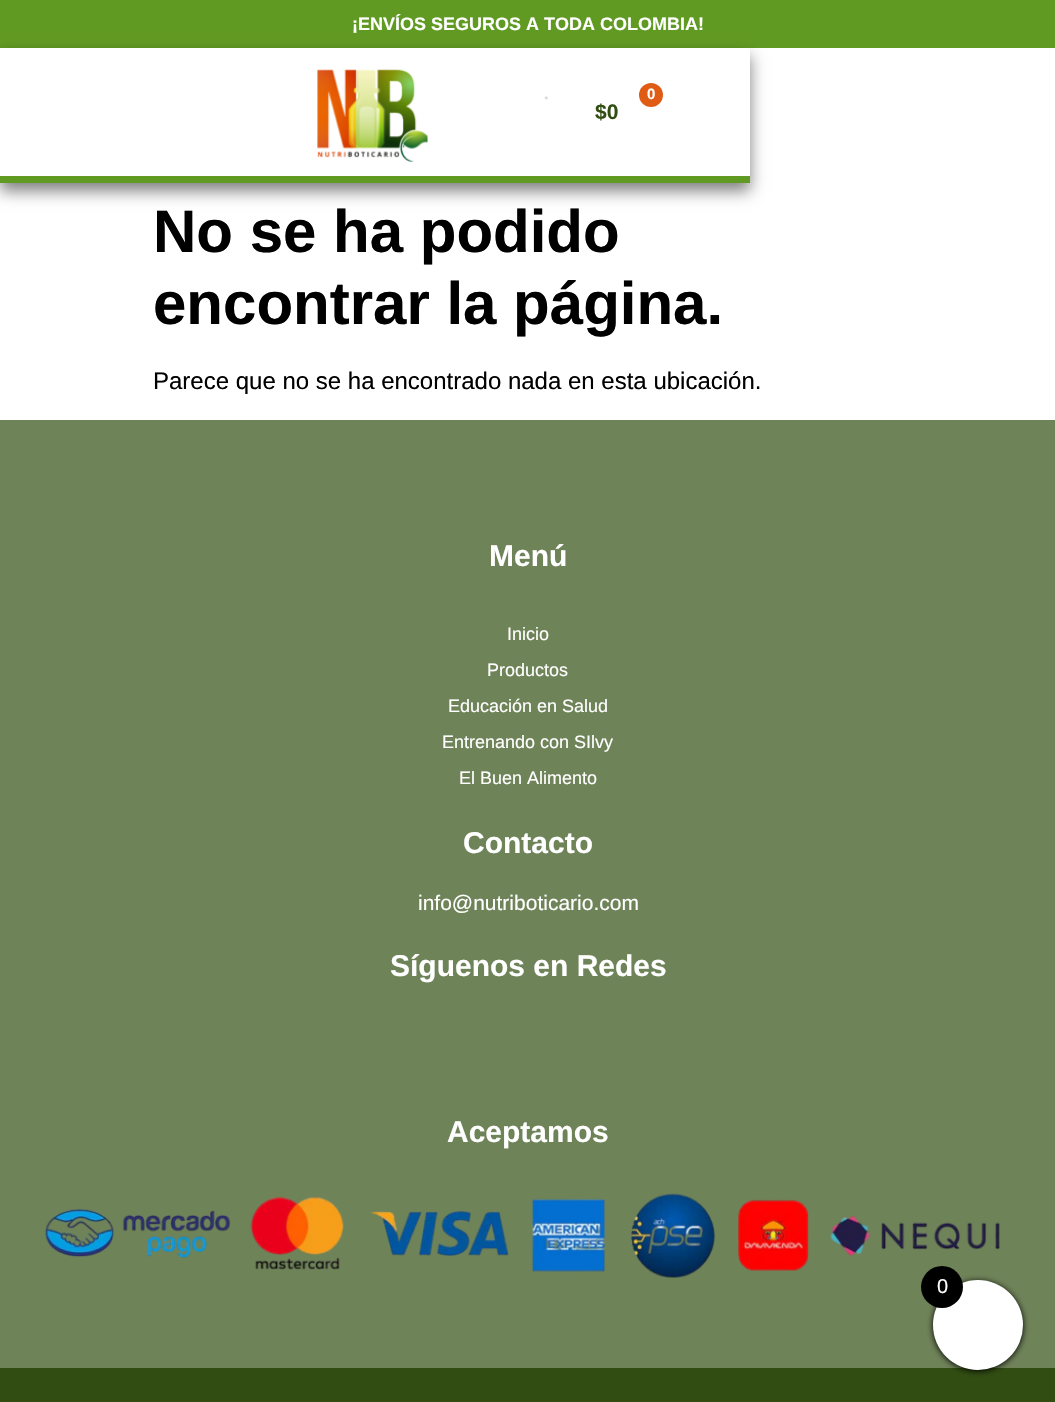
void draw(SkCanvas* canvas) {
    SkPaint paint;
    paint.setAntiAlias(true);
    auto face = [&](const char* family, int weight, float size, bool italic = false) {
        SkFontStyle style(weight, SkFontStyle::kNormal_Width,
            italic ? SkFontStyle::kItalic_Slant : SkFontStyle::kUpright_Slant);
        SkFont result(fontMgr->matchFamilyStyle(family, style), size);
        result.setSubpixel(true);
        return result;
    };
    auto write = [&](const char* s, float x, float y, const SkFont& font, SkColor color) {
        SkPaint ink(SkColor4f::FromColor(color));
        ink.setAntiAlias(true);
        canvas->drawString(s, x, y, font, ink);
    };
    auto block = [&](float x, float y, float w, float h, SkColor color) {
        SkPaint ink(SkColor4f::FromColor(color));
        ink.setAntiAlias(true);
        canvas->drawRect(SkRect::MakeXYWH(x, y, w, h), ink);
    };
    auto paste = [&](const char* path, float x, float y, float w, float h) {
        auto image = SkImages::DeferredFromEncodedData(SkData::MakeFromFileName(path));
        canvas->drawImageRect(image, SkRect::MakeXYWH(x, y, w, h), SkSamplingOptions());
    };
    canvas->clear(SK_ColorWHITE);
    block(0, 0, 1055, 48, SkColorSetRGB(97, 154, 35));
    auto kFont1 = face("Liberation Sans", 700, 18);
    write("¡ENVÍOS SEGUROS A TODA COLOMBIA!", 352, 30, kFont1, SK_ColorWHITE);
    canvas->save();
    canvas->clipPath(SkPathBuilder(SkPathFillType::kEvenOdd).moveTo(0, 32).lineTo(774, 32).lineTo(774, 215).lineTo(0, 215).close().moveTo(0, 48).lineTo(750, 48).lineTo(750, 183).lineTo(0, 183).close().detach(), true);
    paint.setColor(SkColorSetARGB(128, 0, 0, 0));
    paint.setMaskFilter(SkMaskFilter::MakeBlur(kNormal_SkBlurStyle, 7.5f));
    canvas->drawRect(SkRect::MakeXYWH(0, 56, 750, 135), paint);
    paint.setMaskFilter(nullptr);
    canvas->restore();
    block(0, 176, 750, 7, SkColorSetRGB(97, 154, 35));
    paste("pic1.png", 317, 69, 111, 93);
    paint.setStyle(SkPaint::kStroke_Style);
    paint.setStrokeWidth(2.9f);
    paint.setStrokeCap(SkPaint::kRound_Cap);
    paint.setColor(SkColorSetRGB(221, 221, 221));
    canvas->drawPath(SkPathBuilder().moveTo(546, 98).lineTo(546.5f, 98).detach(), paint);
    paint.setStyle(SkPaint::kFill_Style);
    paint.setColor(SkColorSetRGB(224, 92, 21));
    canvas->drawCircle(651, 95, 12, paint);
    auto kFont2 = face("Liberation Sans", 700, 15);
    write("0", 647, 99, kFont2, SK_ColorWHITE);
    auto kFont3 = face("Liberation Sans", 700, 21);
    write("$0", 595, 119, kFont3, SkColorSetRGB(49, 77, 18));
    auto kFont4 = face("Liberation Sans", 700, 60);
    write("No se ha podido", 153, 252, kFont4, SK_ColorBLACK);
    write("encontrar la página.", 153, 324, kFont4, SK_ColorBLACK);
    auto kFont5 = face("Liberation Sans", 400, 24);
    write("Parece que no se ha encontrado nada en esta ubicación.", 153, 389, kFont5, SK_ColorBLACK);
    block(0, 420, 1055, 948, SkColorSetRGB(111, 131, 89));
    auto kFont6 = face("Liberation Sans", 700, 30);
    write("Menú", 489, 566, kFont6, SK_ColorWHITE);
    auto kFont7 = face("Liberation Sans", 400, 18);
    write("Inicio", 507, 640, kFont7, SK_ColorWHITE);
    write("Productos", 487, 676, kFont7, SK_ColorWHITE);
    write("Educación en Salud", 448, 712, kFont7, SK_ColorWHITE);
    write("Entrenando con SIlvy", 442, 748, kFont7, SK_ColorWHITE);
    write("El Buen Alimento", 459, 784, kFont7, SK_ColorWHITE);
    write("Contacto", 463, 853, kFont6, SK_ColorWHITE);
    auto kFont8 = face("Liberation Sans", 400, 21);
    write("info@nutriboticario.com", 418, 910, kFont8, SK_ColorWHITE);
    write("Síguenos en Redes", 390, 976, kFont6, SK_ColorWHITE);
    write("Aceptamos", 447, 1142, kFont6, SK_ColorWHITE);
    paste("pic2.png", 45, 1193, 955, 85);
    block(0, 1368, 1055, 34, SkColorSetRGB(49, 77, 18));
    paint.setColor(SK_ColorBLACK);
    paint.setMaskFilter(SkMaskFilter::MakeBlur(kNormal_SkBlurStyle, 3));
    canvas->drawRoundRect(SkRect::MakeXYWH(933, 1281, 90, 90), 45, 45, paint);
    paint.setMaskFilter(nullptr);
    paint.setColor(SK_ColorWHITE);
    canvas->drawCircle(978, 1325, 45, paint);
    paint.setColor(SK_ColorBLACK);
    canvas->drawCircle(942, 1287, 21, paint);
    auto kFont9 = face("Liberation Sans", 400, 20);
    write("0", 937, 1293, kFont9, SK_ColorWHITE);
}
